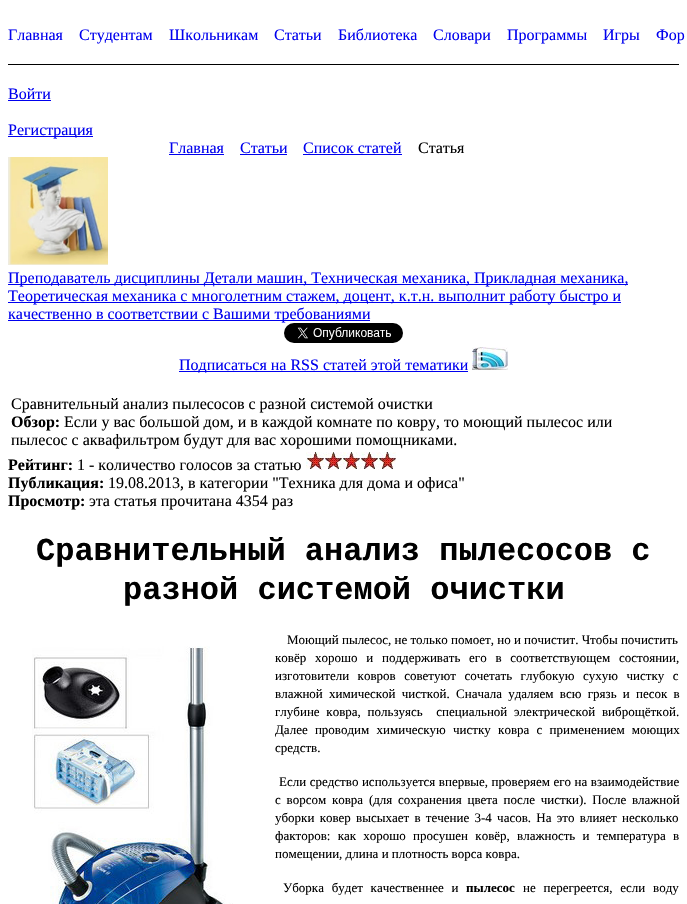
void draw(SkCanvas* canvas) {
    SkPaint paint;
    paint.setAntiAlias(true);
    auto face = [&](const char* family, int weight, float size, bool italic = false) {
        SkFontStyle style(weight, SkFontStyle::kNormal_Width,
            italic ? SkFontStyle::kItalic_Slant : SkFontStyle::kUpright_Slant);
        SkFont result(fontMgr->matchFamilyStyle(family, style), size);
        result.setSubpixel(true);
        return result;
    };
    auto write = [&](const char* s, float x, float y, const SkFont& font, SkColor color) {
        SkPaint ink(SkColor4f::FromColor(color));
        ink.setAntiAlias(true);
        canvas->drawString(s, x, y, font, ink);
    };
    auto writeSpaced = [&](const char* s, float x, float y, const SkFont& font, const SkPaint& ink, float letter, float word) {
        std::vector<SkGlyphID> glyphs(font.countText(s, strlen(s), SkTextEncoding::kUTF8));
        std::vector<float> xs(glyphs.size());
        font.textToGlyphs(s, strlen(s), SkTextEncoding::kUTF8, glyphs);
        font.getXPos(glyphs, xs, x);
        float extra = 0;
        for (size_t i = 0; i < glyphs.size(); i++) {
            xs[i] += extra;
            extra += letter + word * (glyphs[i] == font.unicharToGlyph(' '));
        }
        canvas->drawTextBlob(SkTextBlob::MakeFromPosHGlyphs(glyphs, xs, y, font), 0, 0, ink);
    };
    auto block = [&](float x, float y, float w, float h, SkColor color) {
        SkPaint ink(SkColor4f::FromColor(color));
        ink.setAntiAlias(true);
        canvas->drawRect(SkRect::MakeXYWH(x, y, w, h), ink);
    };
    auto paste = [&](const char* path, float x, float y, float w, float h) {
        auto image = SkImages::DeferredFromEncodedData(SkData::MakeFromFileName(path));
        canvas->drawImageRect(image, SkRect::MakeXYWH(x, y, w, h), SkSamplingOptions());
    };
    canvas->clear(SK_ColorWHITE);
    auto kFont1 = face("Liberation Serif", 400, 16);
    write("Главная", 8, 40, kFont1, SkColorSetRGB(0, 0, 238));
    write("Студентам", 79, 40, kFont1, SkColorSetRGB(0, 0, 238));
    write("Школьникам", 169, 40, kFont1, SkColorSetRGB(0, 0, 238));
    write("Статьи", 274, 40, kFont1, SkColorSetRGB(0, 0, 238));
    write("Библиотека", 338, 40, kFont1, SkColorSetRGB(0, 0, 238));
    write("Словари", 433, 40, kFont1, SkColorSetRGB(0, 0, 238));
    write("Программы", 507, 40, kFont1, SkColorSetRGB(0, 0, 238));
    write("Игры", 603, 40, kFont1, SkColorSetRGB(0, 0, 238));
    write("Фор", 656, 40, kFont1, SkColorSetRGB(0, 0, 238));
    block(8, 64, 671, 1, SK_ColorBLACK);
    write("Войти", 8, 99, kFont1, SkColorSetRGB(0, 0, 238));
    block(8, 100, 43, 1, SkColorSetRGB(0, 0, 238));
    block(8, 136, 85, 1, SkColorSetRGB(0, 0, 238));
    write("Регистрация", 8, 135, kFont1, SkColorSetRGB(0, 0, 238));
    write("Главная", 169, 153, kFont1, SkColorSetRGB(0, 0, 238));
    block(169, 154, 55, 1, SkColorSetRGB(0, 0, 238));
    write("Статьи", 240, 153, kFont1, SkColorSetRGB(0, 0, 238));
    block(240, 154, 47, 1, SkColorSetRGB(0, 0, 238));
    write("Список статей", 303, 153, kFont1, SkColorSetRGB(0, 0, 238));
    block(303, 154, 99, 1, SkColorSetRGB(0, 0, 238));
    write("Статья", 418, 153, kFont1, SK_ColorBLACK);
    paste("pic1.png", 8, 157, 100, 108);
    block(8, 284, 620, 1, SkColorSetRGB(0, 0, 238));
    write("Преподаватель дисциплины Детали машин, Техническая механика, Прикладная механика,", 8, 283, kFont1, SkColorSetRGB(0, 0, 238));
    block(8, 302, 613, 1, SkColorSetRGB(0, 0, 238));
    write("Теоретическая механика с многолетним стажем, доцент, к.т.н. выполнит работу быстро и", 8, 301, kFont1, SkColorSetRGB(0, 0, 238));
    block(8, 320, 362, 1, SkColorSetRGB(0, 0, 238));
    write("качественно в соответствии с Вашими требованиями", 8, 319, kFont1, SkColorSetRGB(0, 0, 238));
    paste("pic2.png", 284, 323, 119, 20);
    block(179, 371, 289, 1, SkColorSetRGB(0, 0, 238));
    write("Подписаться на RSS статей этой тематики", 179, 370, kFont1, SkColorSetRGB(0, 0, 238));
    paste("pic3.png", 472, 347, 36, 23);
    write("Сравнительный анализ пылесосов с разной системой очистки", 11, 409, kFont1, SK_ColorBLACK);
    auto kFont2 = face("Liberation Serif", 700, 16);
    write("Обзор:", 11, 427, kFont2, SK_ColorBLACK);
    write("Если у вас большой дом, и в каждой комнате по ковру, то моющий пылесос или", 64, 427, kFont1, SK_ColorBLACK);
    write("пылесос с аквафильтром будут для вас хорошими помощниками.", 11, 445, kFont1, SK_ColorBLACK);
    write("Рейтинг:", 8, 470, kFont2, SK_ColorBLACK);
    write("1 - количество голосов за статью", 77, 470, kFont1, SK_ColorBLACK);
    paste("pic4.png", 306, 452, 90, 18);
    write("Публикация:", 8, 488, kFont2, SK_ColorBLACK);
    write("19.08.2013, в категории \"Техника для дома и офиса\"", 108, 488, kFont1, SK_ColorBLACK);
    write("Просмотр:", 8, 506, kFont2, SK_ColorBLACK);
    write("эта статья прочитана 4354 раз", 89, 506, kFont1, SK_ColorBLACK);
    auto kFont3 = face("Liberation Mono", 700, 32);
    write("Сравнительный анализ пылесосов с", 36, 560, kFont3, SK_ColorBLACK);
    write("разной системой очистки", 123, 599, kFont3, SK_ColorBLACK);
    auto kFont4 = face("Liberation Serif", 400, 13);
    write("Моющий пылесос, не только помоет, но и почистит. Чтобы почистить", 287, 644, kFont4, SK_ColorBLACK);
    paste("pic5.png", 32, 646, 201, 258);
    paint.setColor(SK_ColorBLACK);
    writeSpaced("ковёр хорошо и поддерживать его в соответствующем состоянии,", 275, 662, kFont4, paint, 0, 5.5f);
    writeSpaced("изготовители ковров советуют сочетать глубокую сухую чистку с", 275, 680, kFont4, paint, 0, 5.25f);
    writeSpaced("влажной химической чисткой. Сначала удаляем всю грязь и песок в", 275, 698, kFont4, paint, 0, 3);
    writeSpaced("глубине ковра, пользуясь  специальной электрической виброщёткой.", 275, 716, kFont4, paint, 0, 3.5f);
    writeSpaced("Далее проводим химическую чистку ковра с применением моющих", 275, 734, kFont4, paint, 0, 4);
    write("средств.", 275, 752, kFont4, SK_ColorBLACK);
    writeSpaced("Если средство используется впервые, проверяем его на взаимодействие", 279, 786, kFont4, paint, 0, 0.25f);
    writeSpaced("с ворсом ковра (для сохранения цвета после чистки). После влажной", 275, 804, kFont4, paint, 0, 2.5f);
    writeSpaced("уборки ковер высыхает в течение 3-4 часов. На это влияет несколько", 275, 822, kFont4, paint, 0, 2);
    writeSpaced("факторов: как хорошо просушен ковёр, влажность и температура в", 275, 840, kFont4, paint, 0, 4);
    write("помещении, длина и плотность ворса ковра.", 275, 858, kFont4, SK_ColorBLACK);
    writeSpaced("Уборка будет качественнее и", 283, 892, kFont4, paint, 0, 4.5f);
    auto kFont5 = face("Liberation Serif", 700, 13);
    write("пылесос", 466, 892, kFont5, SK_ColorBLACK);
    writeSpaced("не перегреется, если воду", 523, 892, kFont4, paint, 0, 4.5f);
}
